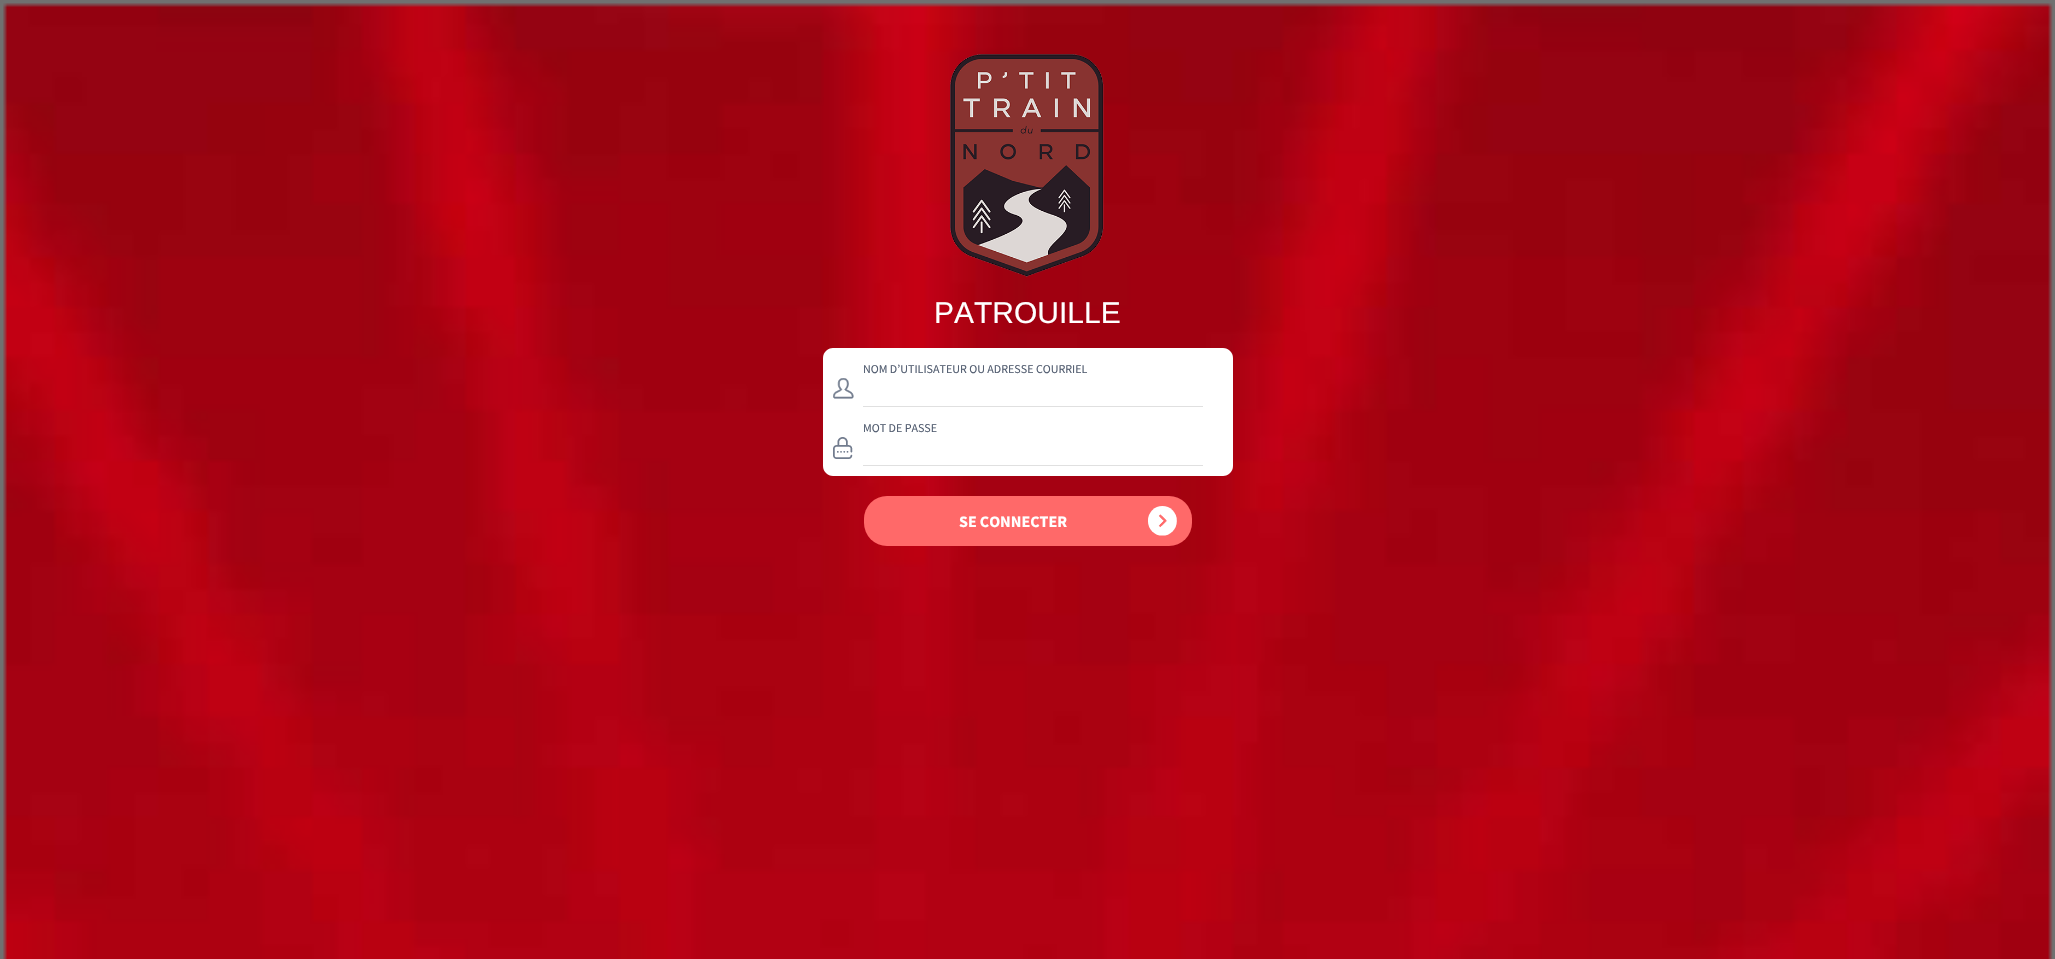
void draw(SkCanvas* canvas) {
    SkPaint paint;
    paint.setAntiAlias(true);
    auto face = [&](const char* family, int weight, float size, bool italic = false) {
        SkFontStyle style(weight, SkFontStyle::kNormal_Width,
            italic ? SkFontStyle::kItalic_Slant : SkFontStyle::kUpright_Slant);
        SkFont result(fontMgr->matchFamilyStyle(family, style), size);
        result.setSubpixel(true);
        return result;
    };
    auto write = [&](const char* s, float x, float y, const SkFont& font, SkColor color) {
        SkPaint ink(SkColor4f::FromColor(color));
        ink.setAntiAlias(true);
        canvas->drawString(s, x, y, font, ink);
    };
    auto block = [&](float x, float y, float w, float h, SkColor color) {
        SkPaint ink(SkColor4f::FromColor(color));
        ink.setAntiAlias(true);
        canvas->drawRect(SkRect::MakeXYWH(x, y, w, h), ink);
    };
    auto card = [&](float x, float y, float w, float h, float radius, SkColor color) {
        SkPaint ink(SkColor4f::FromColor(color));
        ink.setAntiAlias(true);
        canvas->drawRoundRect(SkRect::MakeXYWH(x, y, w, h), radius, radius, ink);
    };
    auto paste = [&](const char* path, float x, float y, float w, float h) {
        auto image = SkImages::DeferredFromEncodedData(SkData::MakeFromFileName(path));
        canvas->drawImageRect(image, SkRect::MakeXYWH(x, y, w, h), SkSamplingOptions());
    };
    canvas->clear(SK_ColorWHITE);
    paste("pic1.png", 0, 0, 2055, 959);
    paste("pic2.png", 950, 54, 154, 223);
    auto kFont1 = face("Liberation Sans", 400, 30);
    write("PATROUILLE", 934, 323, kFont1, SK_ColorWHITE);
    paint.setColor(SK_ColorWHITE);
    canvas->drawPath(SkPathBuilder().moveTo(833, 348).lineTo(1223, 348).cubicTo(1228.5f, 348, 1233, 352.5f, 1233, 358).lineTo(1233, 417).lineTo(823, 417).lineTo(823, 358).cubicTo(823, 352.5f, 827.5f, 348, 833, 348).close().detach(), paint);
    paste("pic3.png", 833, 378, 21, 21);
    auto kFont2 = face("Source Sans Pro", 400, 12);
    write("NOM D’UTILISATEUR OU ADRESSE COURRIEL", 863, 373, kFont2, SkColorSetRGB(81, 92, 111));
    block(863, 406, 340, 1, SkColorSetRGB(224, 224, 224));
    canvas->drawPath(SkPathBuilder().moveTo(823, 417).lineTo(1233, 417).lineTo(1233, 466).cubicTo(1233, 471.5f, 1228.5f, 476, 1223, 476).lineTo(833, 476).cubicTo(827.5f, 476, 823, 471.5f, 823, 466).close().detach(), paint);
    paste("pic4.png", 833, 437, 20, 22);
    write("MOT DE PASSE", 863, 432, kFont2, SkColorSetRGB(81, 92, 111));
    block(863, 465, 340, 1, SkColorSetRGB(224, 224, 224));
    card(864, 496, 328, 50, 23, SkColorSetRGB(255, 105, 105));
    paste("pic5.png", 1148, 506, 29, 30);
    auto kFont3 = face("Source Sans Pro", 700, 16);
    write("SE CONNECTER", 959, 527, kFont3, SK_ColorWHITE);
}
